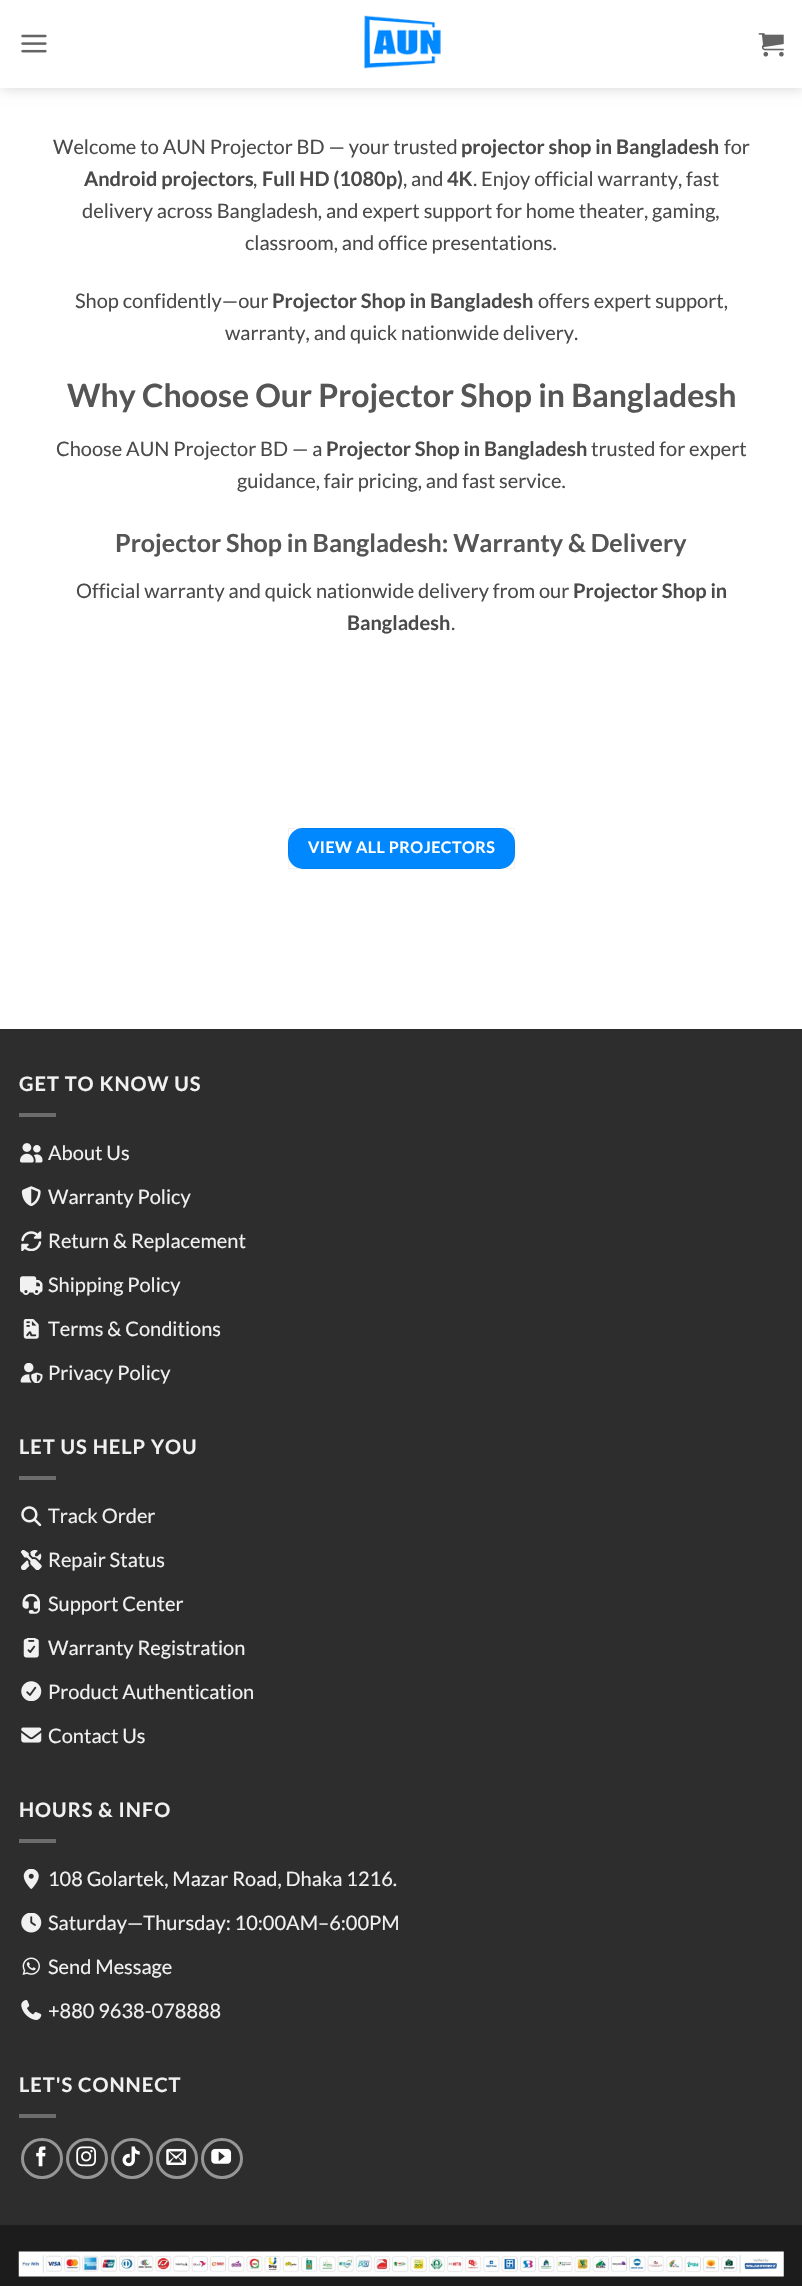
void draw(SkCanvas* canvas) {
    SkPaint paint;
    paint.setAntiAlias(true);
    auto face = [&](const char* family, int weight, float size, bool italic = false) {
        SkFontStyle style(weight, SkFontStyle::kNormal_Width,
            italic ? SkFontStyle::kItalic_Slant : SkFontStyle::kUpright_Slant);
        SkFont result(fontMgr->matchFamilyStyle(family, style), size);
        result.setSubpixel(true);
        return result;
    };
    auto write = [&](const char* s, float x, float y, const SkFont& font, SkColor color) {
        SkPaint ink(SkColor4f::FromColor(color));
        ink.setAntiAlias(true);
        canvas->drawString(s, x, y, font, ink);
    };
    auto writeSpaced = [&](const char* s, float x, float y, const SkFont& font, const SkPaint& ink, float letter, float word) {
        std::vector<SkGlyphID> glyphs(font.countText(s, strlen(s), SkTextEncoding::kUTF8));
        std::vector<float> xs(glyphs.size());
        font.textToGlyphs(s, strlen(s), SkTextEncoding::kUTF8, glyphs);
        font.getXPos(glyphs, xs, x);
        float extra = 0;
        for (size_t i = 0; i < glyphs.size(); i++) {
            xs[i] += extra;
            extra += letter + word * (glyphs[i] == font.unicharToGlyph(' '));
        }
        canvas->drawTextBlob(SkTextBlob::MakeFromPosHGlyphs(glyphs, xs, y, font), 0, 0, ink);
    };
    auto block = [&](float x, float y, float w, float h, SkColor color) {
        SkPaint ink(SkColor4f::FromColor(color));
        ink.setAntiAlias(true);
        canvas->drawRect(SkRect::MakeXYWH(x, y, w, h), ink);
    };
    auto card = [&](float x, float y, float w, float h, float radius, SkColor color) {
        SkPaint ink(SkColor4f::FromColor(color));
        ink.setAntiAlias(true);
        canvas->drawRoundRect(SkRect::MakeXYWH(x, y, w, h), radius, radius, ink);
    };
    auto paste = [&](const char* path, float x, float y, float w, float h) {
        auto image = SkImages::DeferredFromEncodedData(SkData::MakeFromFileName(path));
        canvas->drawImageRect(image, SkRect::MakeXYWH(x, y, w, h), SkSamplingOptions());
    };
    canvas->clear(SK_ColorWHITE);
    canvas->save();
    canvas->clipPath(SkPathBuilder(SkPathFillType::kEvenOdd).moveTo(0, 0).lineTo(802, 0).lineTo(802, 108).lineTo(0, 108).close().moveTo(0, 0).lineTo(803, 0).lineTo(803, 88).lineTo(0, 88).close().detach(), true);
    paint.setColor(SkColorSetARGB(38, 0, 0, 0));
    paint.setMaskFilter(SkMaskFilter::MakeBlur(kNormal_SkBlurStyle, 6));
    canvas->drawRect(SkRect::MakeXYWH(1, 1, 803, 88), paint);
    paint.setMaskFilter(nullptr);
    canvas->restore();
    paste("pic1.png", 21, 34, 26, 19);
    paste("pic2.png", 364, 15, 77, 54);
    paste("pic3.png", 758, 33, 26, 24);
    block(0, 87, 802, 1, SkColorSetARGB(230, 255, 255, 255));
    auto kFont1 = face("Lato", 400, 20);
    write("Welcome to AUN Projector BD — your trusted", 53, 154, kFont1, SkColorSetRGB(74, 74, 74));
    auto kFont2 = face("Lato", 700, 20);
    write("projector shop in Bangladesh", 461, 154, kFont2, SkColorSetRGB(74, 74, 74));
    write("for", 724, 154, kFont1, SkColorSetRGB(74, 74, 74));
    write("Android projectors", 84, 186, kFont2, SkColorSetRGB(74, 74, 74));
    write(",", 253, 186, kFont1, SkColorSetRGB(74, 74, 74));
    write("Full HD (1080p)", 262, 186, kFont2, SkColorSetRGB(74, 74, 74));
    write(", and", 403, 186, kFont1, SkColorSetRGB(74, 74, 74));
    write("4K", 447, 186, kFont2, SkColorSetRGB(74, 74, 74));
    write(". Enjoy official warranty, fast", 473, 186, kFont1, SkColorSetRGB(74, 74, 74));
    write("delivery across Bangladesh, and expert support for home theater, gaming,", 82, 218, kFont1, SkColorSetRGB(74, 74, 74));
    write("classroom, and office presentations.", 245, 250, kFont1, SkColorSetRGB(74, 74, 74));
    write("Shop confidently—our", 75, 308, kFont1, SkColorSetRGB(74, 74, 74));
    write("Projector Shop in Bangladesh", 272, 308, kFont2, SkColorSetRGB(74, 74, 74));
    write("offers expert support,", 538, 308, kFont1, SkColorSetRGB(74, 74, 74));
    write("warranty, and quick nationwide delivery.", 225, 340, kFont1, SkColorSetRGB(74, 74, 74));
    auto kFont3 = face("Lato", 700, 32);
    write("Why Choose Our Projector Shop in Bangladesh", 67, 407, kFont3, SkColorSetRGB(85, 85, 85));
    write("Choose AUN Projector BD — a", 56, 456, kFont1, SkColorSetRGB(74, 74, 74));
    write("Projector Shop in Bangladesh", 326, 456, kFont2, SkColorSetRGB(74, 74, 74));
    write("trusted for expert", 591, 456, kFont1, SkColorSetRGB(74, 74, 74));
    write("guidance, fair pricing, and fast service.", 237, 488, kFont1, SkColorSetRGB(74, 74, 74));
    auto kFont4 = face("Lato", 700, 25);
    write("Projector Shop in Bangladesh: Warranty & Delivery", 115, 552, kFont4, SkColorSetRGB(85, 85, 85));
    write("Official warranty and quick nationwide delivery from our", 76, 598, kFont1, SkColorSetRGB(74, 74, 74));
    write("Projector Shop in", 573, 598, kFont2, SkColorSetRGB(74, 74, 74));
    write("Bangladesh", 347, 630, kFont2, SkColorSetRGB(74, 74, 74));
    write(".", 451, 630, kFont1, SkColorSetRGB(74, 74, 74));
    card(288, 828, 227, 41, 15, SkColorSetRGB(1, 136, 254));
    paint.setStyle(SkPaint::kStroke_Style);
    paint.setStrokeWidth(1);
    paint.setColor(SkColorSetARGB(13, 0, 0, 0));
    canvas->drawRect(SkRect::MakeXYWH(288.5f, 828.5f, 226, 40), paint);
    auto kFont5 = face("Lato", 700, 16);
    paint.setStyle(SkPaint::kFill_Style);
    paint.setColor(SK_ColorWHITE);
    writeSpaced("VIEW ALL PROJECTORS", 308, 853, kFont5, paint, 0.5f, 0);
    block(0, 1030, 802, 1195, SkColorSetRGB(45, 45, 45));
    block(0, 1029, 802, 1, SkColorSetRGB(43, 43, 43));
    paint.setColor(SkColorSetRGB(241, 241, 241));
    writeSpaced("GET TO KNOW US", 19, 1091, kFont2, paint, 1, 0);
    block(19, 1113, 37, 4, SkColorSetRGB(108, 108, 108));
    paste("pic4.png", 20, 1143, 23, 20);
    write("About Us", 48, 1160, kFont1, SkColorSetRGB(241, 241, 241));
    paste("pic5.png", 21, 1186, 20, 20);
    write("Warranty Policy", 48, 1204, kFont1, SkColorSetRGB(241, 241, 241));
    paste("pic6.png", 21, 1231, 21, 20);
    write("Return & Replacement", 48, 1248, kFont1, SkColorSetRGB(241, 241, 241));
    paste("pic7.png", 20, 1276, 23, 19);
    write("Shipping Policy", 48, 1292, kFont1, SkColorSetRGB(241, 241, 241));
    paste("pic8.png", 23, 1319, 16, 20);
    write("Terms & Conditions", 48, 1336, kFont1, SkColorSetRGB(241, 241, 241));
    paste("pic9.png", 20, 1363, 23, 20);
    write("Privacy Policy", 48, 1380, kFont1, SkColorSetRGB(241, 241, 241));
    writeSpaced("LET US HELP YOU", 19, 1454, kFont2, paint, 1, 0);
    block(19, 1476, 37, 4, SkColorSetRGB(108, 108, 108));
    paste("pic10.png", 21, 1506, 21, 20);
    write("Track Order", 48, 1523, kFont1, SkColorSetRGB(241, 241, 241));
    paste("pic11.png", 20, 1550, 22, 20);
    write("Repair Status", 48, 1567, kFont1, SkColorSetRGB(241, 241, 241));
    paste("pic12.png", 22, 1594, 18, 20);
    write("Support Center", 48, 1611, kFont1, SkColorSetRGB(241, 241, 241));
    paste("pic13.png", 23, 1638, 16, 20);
    write("Warranty Registration", 48, 1655, kFont1, SkColorSetRGB(241, 241, 241));
    paste("pic14.png", 21, 1681, 21, 20);
    write("Product Authentication", 48, 1699, kFont1, SkColorSetRGB(241, 241, 241));
    paste("pic15.png", 21, 1727, 21, 16);
    write("Contact Us", 48, 1743, kFont1, SkColorSetRGB(241, 241, 241));
    writeSpaced("HOURS & INFO", 19, 1817, kFont2, paint, 1, 0);
    block(19, 1839, 37, 4, SkColorSetRGB(108, 108, 108));
    paste("pic16.png", 23, 1869, 16, 20);
    write("108 Golartek, Mazar Road, Dhaka 1216.", 48, 1886, kFont1, SkColorSetRGB(241, 241, 241));
    paste("pic17.png", 21, 1913, 21, 20);
    write("Saturday—Thursday: 10:00AM–6:00PM", 48, 1930, kFont1, SkColorSetRGB(241, 241, 241));
    paste("pic18.png", 22, 1957, 18, 18);
    write("Send Message", 48, 1974, kFont1, SkColorSetRGB(241, 241, 241));
    paste("pic19.png", 21, 2000, 21, 20);
    write("+880 9638-078888", 48, 2018, kFont1, SkColorSetRGB(241, 241, 241));
    writeSpaced("LET'S CONNECT", 19, 2092, kFont2, paint, 1, 0);
    block(19, 2114, 37, 4, SkColorSetRGB(108, 108, 108));
    paint.setStyle(SkPaint::kStroke_Style);
    paint.setStrokeWidth(3);
    paint.setColor(SkColorSetRGB(150, 150, 150));
    canvas->drawRoundRect(SkRect::MakeXYWH(22.5f, 2139.5f, 39, 38), 19, 19, paint);
    paste("pic20.png", 36, 2146, 10, 21);
    canvas->drawRoundRect(SkRect::MakeXYWH(67.5f, 2139.5f, 39, 38), 19, 19, paint);
    paste("pic21.png", 76, 2146, 20, 21);
    canvas->drawRoundRect(SkRect::MakeXYWH(112.5f, 2139.5f, 39, 38), 19, 19, paint);
    paste("pic22.png", 122, 2146, 18, 21);
    canvas->drawRoundRect(SkRect::MakeXYWH(157.5f, 2139.5f, 39, 38), 19, 19, paint);
    paste("pic23.png", 166, 2148, 21, 17);
    canvas->drawRoundRect(SkRect::MakeXYWH(202.5f, 2139.5f, 39, 38), 19, 19, paint);
    paste("pic24.png", 211, 2148, 21, 16);
    block(0, 2225, 802, 61, SkColorSetRGB(28, 28, 28));
    paste("pic25.png", 18, 2251, 766, 26);
}
